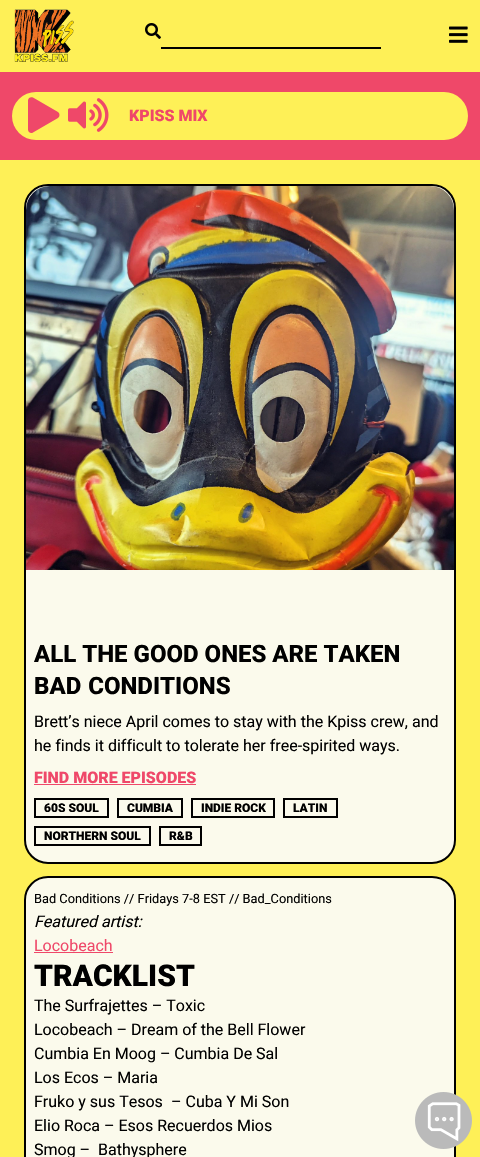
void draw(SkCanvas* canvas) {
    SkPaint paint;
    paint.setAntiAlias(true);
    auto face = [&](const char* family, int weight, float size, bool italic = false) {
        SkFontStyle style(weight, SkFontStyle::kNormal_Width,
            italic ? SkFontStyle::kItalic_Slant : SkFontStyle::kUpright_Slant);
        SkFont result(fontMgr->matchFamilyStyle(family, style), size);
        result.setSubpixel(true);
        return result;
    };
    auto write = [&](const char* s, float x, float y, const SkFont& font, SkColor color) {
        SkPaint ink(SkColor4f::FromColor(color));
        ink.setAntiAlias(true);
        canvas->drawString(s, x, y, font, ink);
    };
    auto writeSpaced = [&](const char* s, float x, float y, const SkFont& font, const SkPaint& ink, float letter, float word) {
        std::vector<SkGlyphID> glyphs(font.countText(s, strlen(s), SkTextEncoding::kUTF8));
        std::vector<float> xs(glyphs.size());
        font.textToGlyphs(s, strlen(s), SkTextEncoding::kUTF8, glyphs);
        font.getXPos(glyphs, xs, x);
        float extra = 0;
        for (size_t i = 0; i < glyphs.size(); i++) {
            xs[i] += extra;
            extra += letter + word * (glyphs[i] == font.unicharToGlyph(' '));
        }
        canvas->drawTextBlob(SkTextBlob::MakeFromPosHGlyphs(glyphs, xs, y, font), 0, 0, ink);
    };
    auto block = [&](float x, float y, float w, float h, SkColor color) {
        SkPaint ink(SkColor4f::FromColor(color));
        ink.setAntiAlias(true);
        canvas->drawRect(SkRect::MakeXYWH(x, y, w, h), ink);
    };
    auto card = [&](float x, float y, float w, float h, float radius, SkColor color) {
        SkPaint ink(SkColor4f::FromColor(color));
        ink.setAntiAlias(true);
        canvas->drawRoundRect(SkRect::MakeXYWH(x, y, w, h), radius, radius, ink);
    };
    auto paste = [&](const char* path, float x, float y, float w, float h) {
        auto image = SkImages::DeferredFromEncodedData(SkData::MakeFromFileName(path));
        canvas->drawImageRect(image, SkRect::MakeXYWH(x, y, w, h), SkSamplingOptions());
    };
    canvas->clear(SkColorSetRGB(254, 240, 87));
    paste("pic1.png", 14, 9, 60, 53);
    paste("pic2.png", 145, 23, 16, 16);
    block(161, 47, 220, 2, SK_ColorBLACK);
    paste("pic3.png", 449, 26, 19, 17);
    block(0, 72, 480, 88, SkColorSetRGB(239, 72, 105));
    card(12, 92, 456, 48, 24, SkColorSetRGB(254, 240, 87));
    paint.setColor(SkColorSetRGB(239, 72, 105));
    canvas->drawPath(SkPathBuilder().moveTo(58, 112).lineTo(33, 97.5f).cubicTo(31, 96.5f, 28, 97.5f, 28, 100.5f).lineTo(28, 129.5f).cubicTo(28, 132.5f, 31, 134, 33, 132.5f).lineTo(58, 118).cubicTo(60, 116.5f, 60, 113.5f, 58, 112).close().detach(), paint);
    paste("pic4.png", 68, 98, 41, 34);
    auto kFont1 = face("Roboto", 900, 16);
    write("KPISS MIX", 129, 121, kFont1, SkColorSetRGB(239, 72, 105));
    paint.setColor(SkColorSetRGB(251, 250, 236));
    canvas->drawRoundRect(SkRect::MakeXYWH(25, 185, 430, 678), 23, 23, paint);
    paint.setStyle(SkPaint::kStroke_Style);
    paint.setStrokeWidth(2);
    paint.setColor(SK_ColorBLACK);
    canvas->drawRoundRect(SkRect::MakeXYWH(25, 185, 430, 678), 23, 23, paint);
    paste("pic5.png", 26, 186, 428, 384);
    auto kFont2 = face("Roboto", 800, 24);
    write("ALL THE GOOD ONES ARE TAKEN", 34, 662, kFont2, SK_ColorBLACK);
    paint.setStyle(SkPaint::kFill_Style);
    writeSpaced("BAD CONDITIONS", 34, 694, kFont2, paint, 0, 1);
    auto kFont3 = face("Roboto", 400, 16);
    write("Brett’s niece April comes to stay with the Kpiss crew, and", 34, 727, kFont3, SK_ColorBLACK);
    write("he finds it difficult to tolerate her free-spirited ways.", 34, 751, kFont3, SK_ColorBLACK);
    write("FIND MORE EPISODES", 34, 783, kFont1, SkColorSetRGB(239, 72, 105));
    block(34, 784, 162, 1, SkColorSetRGB(239, 72, 105));
    paint.setStyle(SkPaint::kStroke_Style);
    canvas->drawRect(SkRect::MakeXYWH(35, 799, 73, 18), paint);
    auto kFont4 = face("Roboto", 900, 12);
    write("60S SOUL", 44, 812, kFont4, SK_ColorBLACK);
    canvas->drawRect(SkRect::MakeXYWH(118, 799, 64, 18), paint);
    write("CUMBIA", 127, 812, kFont4, SK_ColorBLACK);
    canvas->drawRect(SkRect::MakeXYWH(192, 799, 82, 18), paint);
    write("INDIE ROCK", 201, 812, kFont4, SK_ColorBLACK);
    canvas->drawRect(SkRect::MakeXYWH(284, 799, 53, 18), paint);
    write("LATIN", 293, 812, kFont4, SK_ColorBLACK);
    canvas->drawRect(SkRect::MakeXYWH(35, 827, 115, 18), paint);
    write("NORTHERN SOUL", 44, 840, kFont4, SK_ColorBLACK);
    canvas->drawRect(SkRect::MakeXYWH(160, 827, 41, 18), paint);
    write("R&B", 169, 840, kFont4, SK_ColorBLACK);
    paint.setStyle(SkPaint::kFill_Style);
    paint.setColor(SkColorSetRGB(251, 250, 236));
    canvas->drawRoundRect(SkRect::MakeXYWH(25, 877, 430, 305), 23, 23, paint);
    paint.setStyle(SkPaint::kStroke_Style);
    paint.setColor(SK_ColorBLACK);
    canvas->drawRoundRect(SkRect::MakeXYWH(25, 877, 430, 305), 23, 23, paint);
    auto kFont5 = face("Roboto", 400, 12.8f);
    write("Bad Conditions // Fridays 7-8 EST // Bad_Conditions", 34, 903, kFont5, SK_ColorBLACK);
    auto kFont6 = face("Roboto", 400, 16, true);
    write("Featured artist:", 34, 927, kFont6, SK_ColorBLACK);
    write("Locobeach", 34, 951, kFont3, SkColorSetRGB(239, 72, 105));
    block(34, 952, 79, 1, SkColorSetRGB(239, 72, 105));
    auto kFont7 = face("Roboto", 900, 30);
    write("TRACKLIST", 34, 986, kFont7, SK_ColorBLACK);
    write("The Surfrajettes – Toxic", 34, 1011, kFont3, SK_ColorBLACK);
    write("Locobeach – Dream of the Bell Flower", 34, 1035, kFont3, SK_ColorBLACK);
    write("Cumbia En Moog – Cumbia De Sal", 34, 1059, kFont3, SK_ColorBLACK);
    write("Los Ecos – Maria", 34, 1083, kFont3, SK_ColorBLACK);
    write("Fruko y sus Tesos", 34, 1107, kFont3, SK_ColorBLACK);
    write("– Cuba Y Mi Son", 171, 1107, kFont3, SK_ColorBLACK);
    write("Elio Roca – Esos Recuerdos Mios", 34, 1131, kFont3, SK_ColorBLACK);
    write("Smog –", 34, 1155, kFont3, SK_ColorBLACK);
    write("Bathysphere", 98, 1155, kFont3, SK_ColorBLACK);
    paste("pic6.png", 415, 1092, 57, 57);
}
